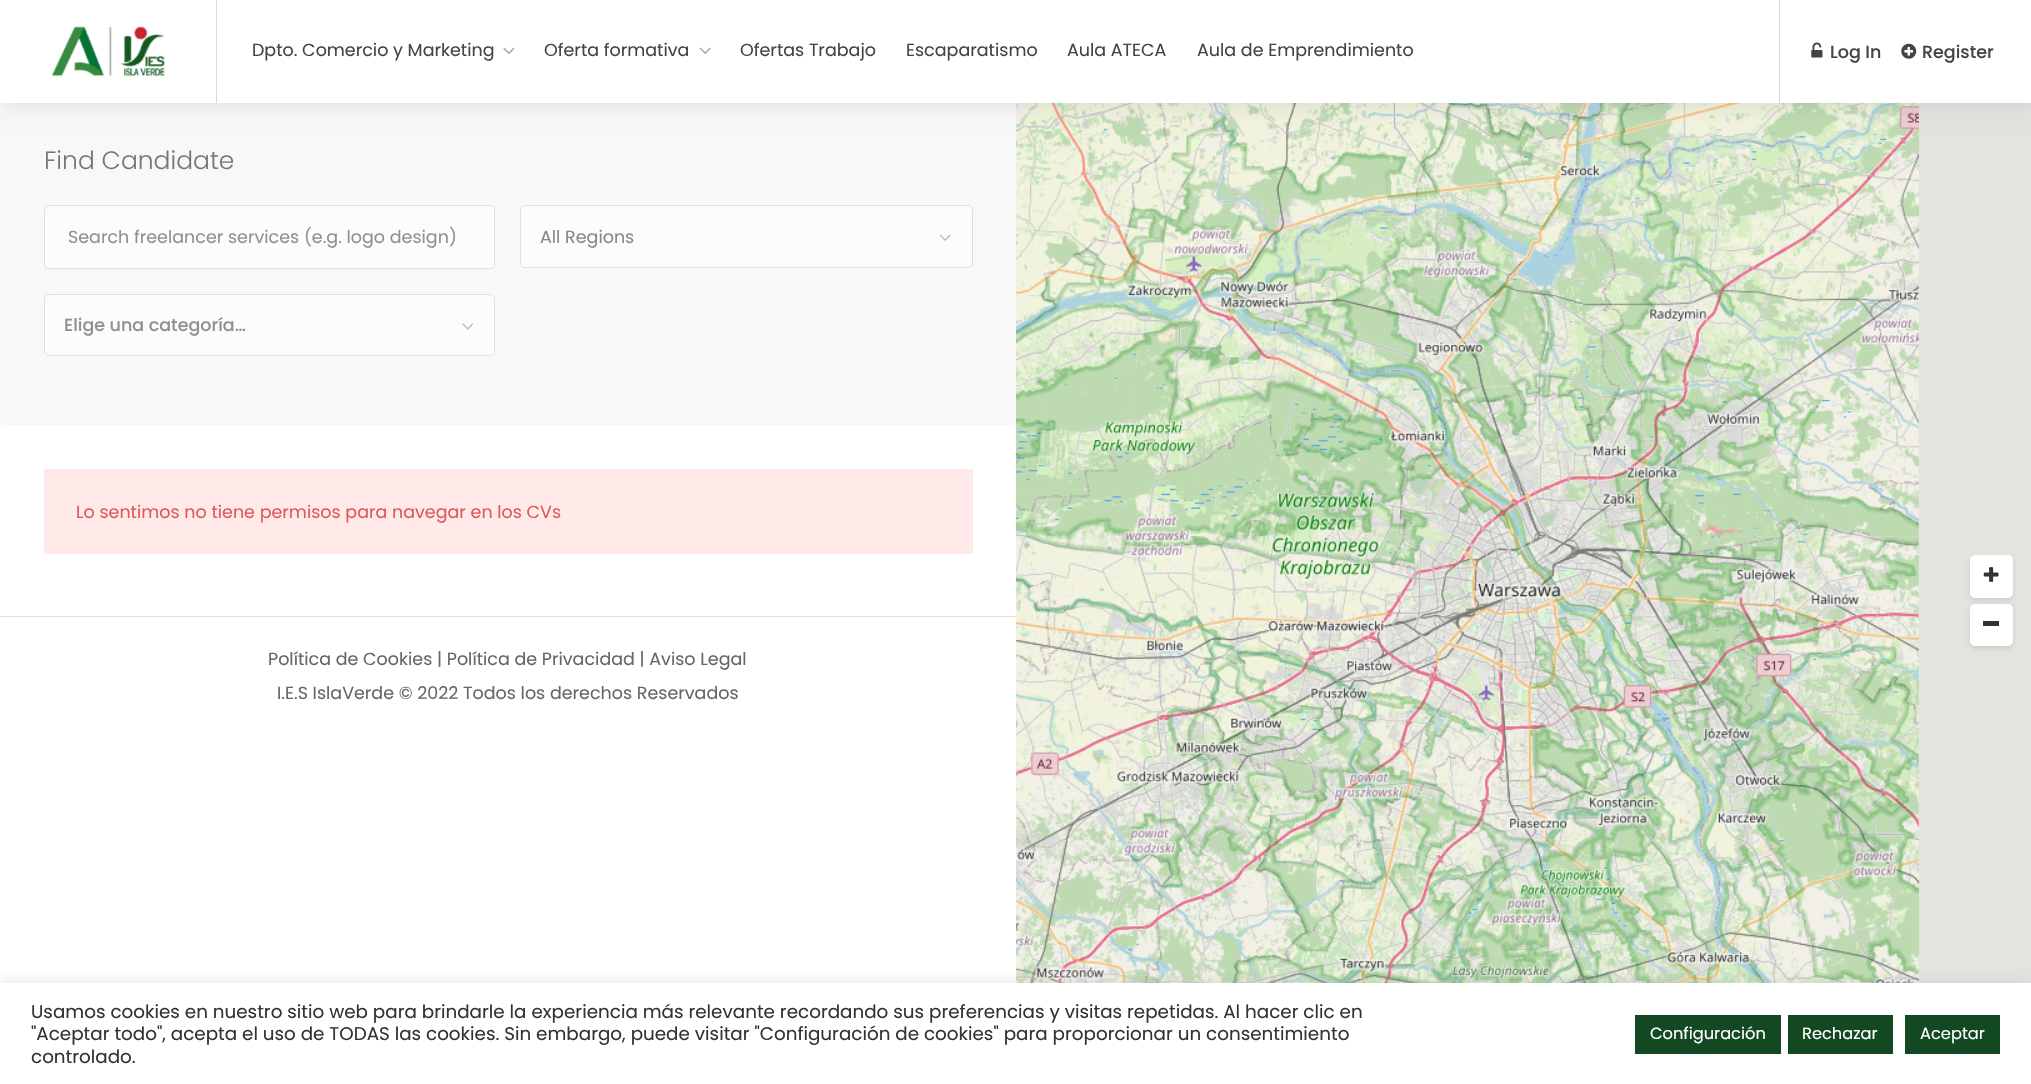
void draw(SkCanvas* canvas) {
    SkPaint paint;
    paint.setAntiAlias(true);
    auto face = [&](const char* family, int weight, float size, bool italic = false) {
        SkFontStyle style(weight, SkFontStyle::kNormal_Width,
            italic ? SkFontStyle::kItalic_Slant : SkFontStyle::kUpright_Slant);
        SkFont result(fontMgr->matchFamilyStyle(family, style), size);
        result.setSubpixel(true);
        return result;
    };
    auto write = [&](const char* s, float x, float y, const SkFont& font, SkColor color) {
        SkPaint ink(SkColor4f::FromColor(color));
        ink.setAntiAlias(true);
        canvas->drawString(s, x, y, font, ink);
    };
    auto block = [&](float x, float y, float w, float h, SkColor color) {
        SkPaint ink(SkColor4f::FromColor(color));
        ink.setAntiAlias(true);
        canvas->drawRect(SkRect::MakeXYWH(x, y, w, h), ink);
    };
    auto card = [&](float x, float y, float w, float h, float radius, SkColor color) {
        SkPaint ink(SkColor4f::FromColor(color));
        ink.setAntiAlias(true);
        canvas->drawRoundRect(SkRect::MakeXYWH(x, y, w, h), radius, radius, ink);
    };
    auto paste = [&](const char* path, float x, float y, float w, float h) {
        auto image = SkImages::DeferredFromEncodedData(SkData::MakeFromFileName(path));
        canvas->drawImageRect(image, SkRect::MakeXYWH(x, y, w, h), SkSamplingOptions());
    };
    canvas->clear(SK_ColorWHITE);
    card(0, 103, 1016, 322, 4, SkColorSetRGB(248, 248, 248));
    block(1279, 103, 752, 880, SkColorSetRGB(229, 227, 223));
    paste("pic8.png", 1016, 103, 263, 113);
    paste("pic9.png", 1279, 103, 320, 113);
    paste("pic10.png", 1598, 103, 321, 113);
    paint.setColor(SkColorSetARGB(31, 0, 0, 0));
    paint.setMaskFilter(SkMaskFilter::MakeBlur(kNormal_SkBlurStyle, 11));
    canvas->drawRect(SkRect::MakeXYWH(0, 0, 2031, 103), paint);
    paint.setMaskFilter(nullptr);
    block(0, 0, 2031, 103, SK_ColorWHITE);
    block(216, 0, 1, 103, SkColorSetRGB(217, 217, 217));
    paste("pic1.png", 52, 26, 113, 51);
    auto kFont1 = face("Poppins", 400, 17.5f);
    write("Dpto. Comercio y Marketing", 252, 56, kFont1, SkColorSetRGB(68, 68, 68));
    paste("pic2.png", 503, 47, 12, 7);
    write("Oferta formativa", 544, 56, kFont1, SkColorSetRGB(68, 68, 68));
    paste("pic3.png", 699, 47, 12, 7);
    write("Ofertas Trabajo", 740, 56, kFont1, SkColorSetRGB(68, 68, 68));
    write("Escaparatismo", 906, 56, kFont1, SkColorSetRGB(68, 68, 68));
    write("Aula ATECA", 1067, 56, kFont1, SkColorSetRGB(68, 68, 68));
    write("Aula de Emprendimiento", 1197, 56, kFont1, SkColorSetRGB(68, 68, 68));
    block(1779, 0, 1, 103, SkColorSetRGB(217, 217, 217));
    paste("pic4.png", 1811, 42, 12, 16);
    auto kFont2 = face("Poppins", 500, 17.5f);
    write("Log In", 1830, 58, kFont2, SkColorSetRGB(68, 68, 68));
    paste("pic5.png", 1901, 43, 16, 16);
    write("Register", 1922, 58, kFont2, SkColorSetRGB(68, 68, 68));
    auto kFont3 = face("Poppins", 300, 25);
    write("Find Candidate", 44, 169, kFont3, SkColorSetRGB(119, 119, 119));
    paint.setColor(SkColorSetRGB(252, 252, 252));
    canvas->drawRoundRect(SkRect::MakeXYWH(44.5f, 205.5f, 450, 63), 3.5f, 3.5f, paint);
    paint.setStyle(SkPaint::kStroke_Style);
    paint.setStrokeWidth(1);
    paint.setColor(SkColorSetRGB(224, 224, 224));
    canvas->drawRoundRect(SkRect::MakeXYWH(44.5f, 205.5f, 450, 63), 3.5f, 3.5f, paint);
    write("Search freelancer services (e.g. logo design)", 68, 243, kFont1, SkColorSetRGB(144, 144, 144));
    paint.setStyle(SkPaint::kFill_Style);
    paint.setColor(SkColorSetRGB(252, 252, 252));
    canvas->drawRoundRect(SkRect::MakeXYWH(520.5f, 205.5f, 452, 62), 4.5f, 4.5f, paint);
    paint.setStyle(SkPaint::kStroke_Style);
    paint.setColor(SkColorSetRGB(224, 224, 224));
    canvas->drawRoundRect(SkRect::MakeXYWH(520.5f, 205.5f, 452, 62), 4.5f, 4.5f, paint);
    write("All Regions", 540, 243, kFont1, SkColorSetRGB(136, 136, 136));
    paste("pic6.png", 939, 234, 12, 7);
    paint.setStyle(SkPaint::kFill_Style);
    paint.setColor(SkColorSetRGB(252, 252, 252));
    canvas->drawRoundRect(SkRect::MakeXYWH(44.5f, 294.5f, 450, 61), 4.5f, 4.5f, paint);
    paint.setStyle(SkPaint::kStroke_Style);
    paint.setColor(SkColorSetRGB(224, 224, 224));
    canvas->drawRoundRect(SkRect::MakeXYWH(44.5f, 294.5f, 450, 61), 4.5f, 4.5f, paint);
    write("Elige una categoría…", 64, 331, kFont2, SkColorSetRGB(144, 144, 144));
    paste("pic7.png", 462, 323, 12, 7);
    block(44, 469, 929, 85, SkColorSetRGB(255, 233, 233));
    write("Lo sentimos no tiene permisos para navegar en los CVs", 76, 518, kFont1, SkColorSetRGB(222, 89, 89));
    block(0, 616, 1016, 1, SkColorSetRGB(224, 224, 224));
    write("Política de Cookies | Política de Privacidad | Aviso Legal", 268, 665, kFont1, SkColorSetRGB(102, 102, 102));
    write("I.E.S IslaVerde © 2022 Todos los derechos Reservados", 277, 699, kFont1, SkColorSetRGB(102, 102, 102));
    paste("pic11.png", 1016, 216, 263, 320);
    paste("pic12.png", 1279, 216, 320, 321);
    paste("pic13.png", 1598, 216, 321, 321);
    paste("pic14.png", 1016, 536, 263, 320);
    paste("pic15.png", 1279, 536, 320, 320);
    paste("pic16.png", 1598, 536, 321, 320);
    paste("pic17.png", 1016, 856, 263, 127);
    paste("pic18.png", 1279, 856, 320, 127);
    paste("pic19.png", 1598, 856, 321, 127);
    paint.setStyle(SkPaint::kFill_Style);
    paint.setColor(SkColorSetARGB(26, 0, 0, 0));
    paint.setMaskFilter(SkMaskFilter::MakeBlur(kNormal_SkBlurStyle, 2.5f));
    canvas->drawRoundRect(SkRect::MakeXYWH(1970, 558, 43, 42), 5, 5, paint);
    paint.setMaskFilter(nullptr);
    card(1970, 555, 43, 43, 5, SK_ColorWHITE);
    paste("pic20.png", 1983, 567, 16, 15);
    paint.setMaskFilter(SkMaskFilter::MakeBlur(kNormal_SkBlurStyle, 2.5f));
    canvas->drawRoundRect(SkRect::MakeXYWH(1970, 606, 43, 43), 5, 5, paint);
    paint.setMaskFilter(nullptr);
    card(1970, 604, 43, 42, 5, SK_ColorWHITE);
    block(1983, 621, 16, 5, SkColorSetRGB(51, 51, 51));
    paint.setColor(SkColorSetARGB(77, 172, 171, 171));
    paint.setMaskFilter(SkMaskFilter::MakeBlur(kNormal_SkBlurStyle, 6));
    canvas->drawRect(SkRect::MakeXYWH(0, 981, 2031, 103), paint);
    paint.setMaskFilter(nullptr);
    block(0, 983, 2031, 101, SK_ColorWHITE);
    auto kFont4 = face("Poppins", 400, 18.33f);
    write("Usamos cookies en nuestro sitio web para brindarle la experiencia más relevante recordando sus preferencias y visitas repetidas. Al hacer clic en", 31, 1018, kFont4, SkColorSetRGB(51, 51, 51));
    write("\"Aceptar todo\", acepta el uso de TODAS las cookies. Sin embargo, puede visitar \"Configuración de cookies\" para proporcionar un consentimiento", 31, 1040, kFont4, SkColorSetRGB(51, 51, 51));
    write("controlado.", 31, 1063, kFont4, SkColorSetRGB(51, 51, 51));
    block(1635, 1015, 146, 39, SkColorSetRGB(18, 73, 34));
    auto kFont5 = face("Poppins", 400, 16.25f);
    write("Configuración", 1650, 1039, kFont5, SK_ColorWHITE);
    block(1788, 1015, 105, 39, SkColorSetRGB(18, 73, 34));
    write("Rechazar", 1802, 1039, kFont5, SK_ColorWHITE);
    block(1905, 1015, 95, 39, SkColorSetRGB(18, 73, 34));
    write("Aceptar", 1920, 1039, kFont5, SK_ColorWHITE);
}
